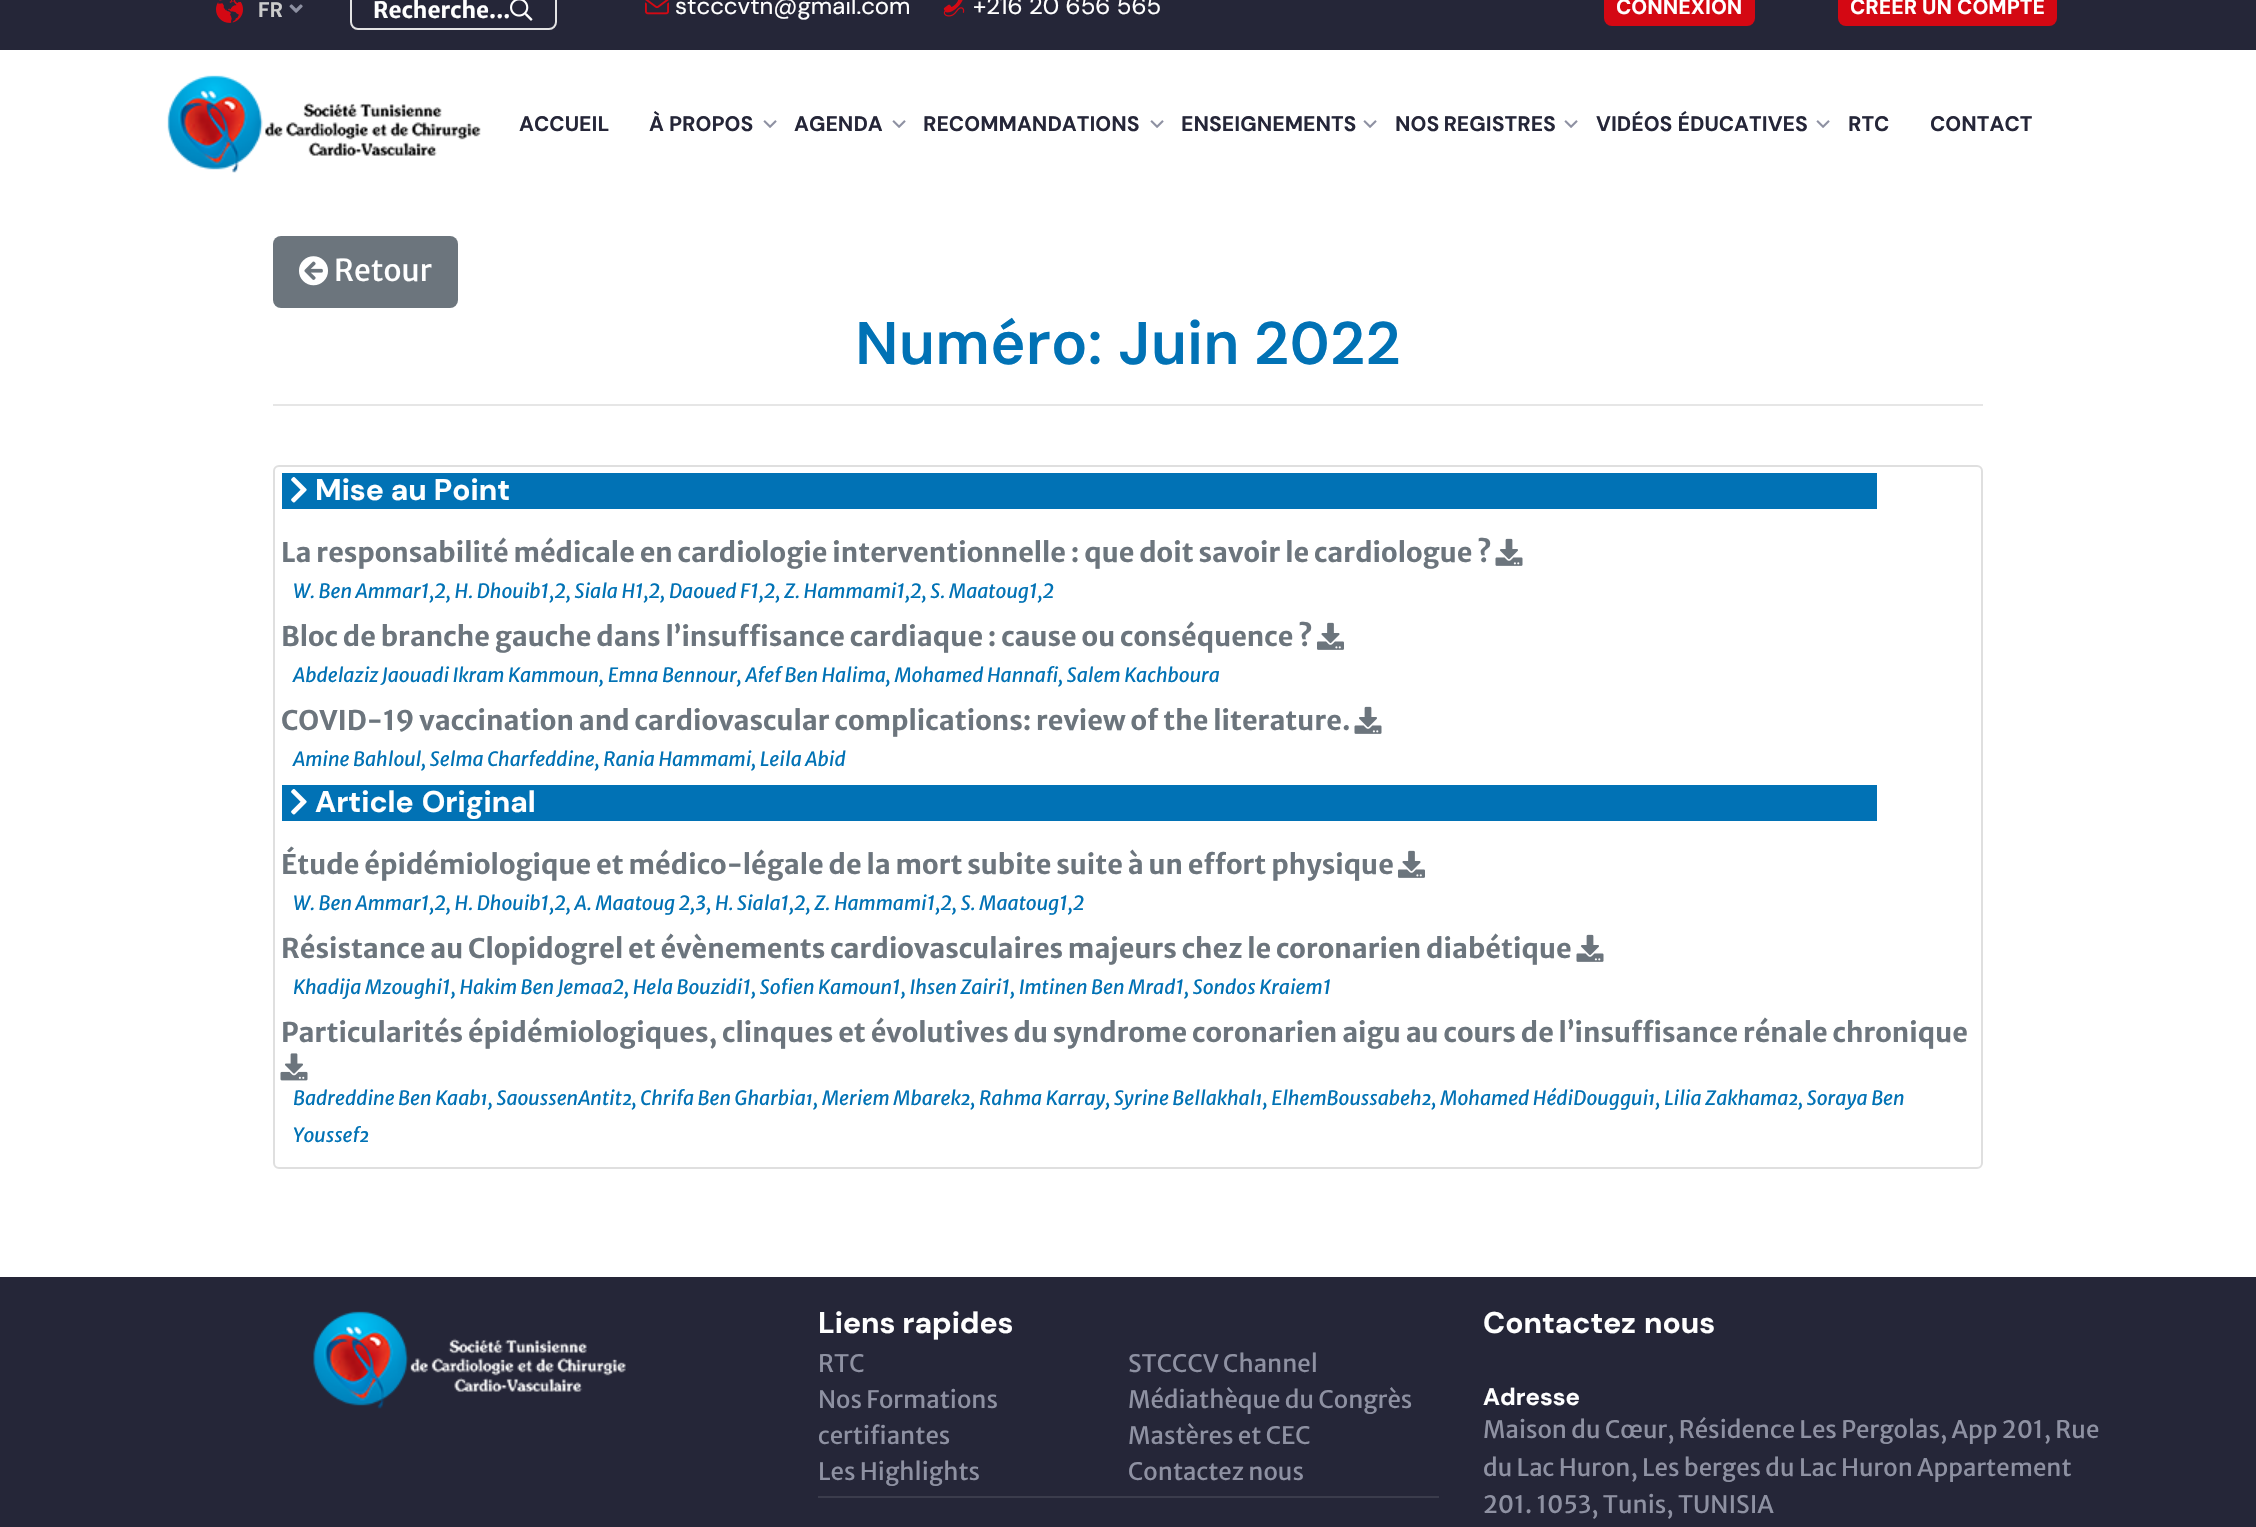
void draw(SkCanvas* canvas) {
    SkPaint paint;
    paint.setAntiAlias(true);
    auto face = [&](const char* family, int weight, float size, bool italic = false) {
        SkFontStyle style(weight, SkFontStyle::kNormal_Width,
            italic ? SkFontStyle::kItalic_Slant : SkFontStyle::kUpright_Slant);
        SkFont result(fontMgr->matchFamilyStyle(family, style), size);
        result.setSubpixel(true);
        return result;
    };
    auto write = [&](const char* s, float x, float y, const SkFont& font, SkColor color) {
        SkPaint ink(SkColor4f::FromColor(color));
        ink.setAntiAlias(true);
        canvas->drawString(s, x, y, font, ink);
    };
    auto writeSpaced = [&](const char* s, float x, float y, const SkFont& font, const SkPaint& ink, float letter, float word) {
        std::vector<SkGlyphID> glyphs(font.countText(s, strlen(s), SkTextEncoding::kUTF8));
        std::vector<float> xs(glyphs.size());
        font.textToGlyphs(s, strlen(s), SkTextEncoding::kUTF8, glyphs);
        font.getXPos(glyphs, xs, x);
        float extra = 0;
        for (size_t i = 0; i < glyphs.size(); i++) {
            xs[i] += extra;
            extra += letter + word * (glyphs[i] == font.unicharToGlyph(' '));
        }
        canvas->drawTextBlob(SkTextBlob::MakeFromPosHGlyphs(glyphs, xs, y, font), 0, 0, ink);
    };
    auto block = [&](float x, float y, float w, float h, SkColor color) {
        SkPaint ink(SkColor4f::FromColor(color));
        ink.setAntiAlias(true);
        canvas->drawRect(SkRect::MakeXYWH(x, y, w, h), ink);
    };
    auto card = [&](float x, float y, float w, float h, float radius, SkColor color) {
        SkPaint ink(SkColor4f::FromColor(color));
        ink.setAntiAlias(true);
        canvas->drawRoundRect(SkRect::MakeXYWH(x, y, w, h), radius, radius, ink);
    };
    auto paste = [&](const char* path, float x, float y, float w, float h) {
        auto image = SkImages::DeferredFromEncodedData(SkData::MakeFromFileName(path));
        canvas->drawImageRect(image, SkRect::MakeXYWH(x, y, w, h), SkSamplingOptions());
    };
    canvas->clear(SK_ColorWHITE);
    block(0, 0, 2256, 50, SkColorSetRGB(37, 38, 56));
    paste("pic1.png", 216, 0, 27, 23);
    auto kFont1 = face("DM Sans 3", 700, 21);
    write("FR", 258, 17, kFont1, SkColorSetRGB(204, 204, 204));
    paste("pic2.png", 289, 4, 14, 9);
    paint.setStyle(SkPaint::kStroke_Style);
    paint.setStrokeWidth(2);
    paint.setColor(SkColorSetRGB(227, 227, 227));
    canvas->drawRoundRect(SkRect::MakeXYWH(351, -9, 205, 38), 7, 7, paint);
    auto kFont2 = face("Merriweather Sans", 700, 22.5f);
    write("Recherche...", 373, 18, kFont2, SK_ColorWHITE);
    paste("pic3.png", 510, 0, 23, 21);
    paste("pic4.png", 645, 0, 24, 15);
    auto kFont3 = face("DM Sans", 400, 24);
    write("stcccvtn@gmail.com", 675, 14, kFont3, SK_ColorWHITE);
    paste("pic5.png", 943, 0, 22, 17);
    write("+216 20 656 565", 973, 14, kFont3, SK_ColorWHITE);
    card(1604, -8, 151, 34, 8, SkColorSetRGB(212, 8, 19));
    auto kFont4 = face("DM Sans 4", 700, 21);
    write("CONNEXION", 1616, 14, kFont4, SK_ColorWHITE);
    card(1838, -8, 219, 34, 8, SkColorSetRGB(212, 8, 19));
    write("CRÉER UN COMPTE", 1850, 14, kFont4, SK_ColorWHITE);
    paste("pic6.png", 167, 75, 314, 98);
    write("ACCUEIL", 519, 131, kFont4, SkColorSetRGB(37, 38, 56));
    write("À PROPOS", 649, 131, kFont4, SkColorSetRGB(37, 38, 56));
    paste("pic7.png", 763, 120, 14, 8);
    write("AGENDA", 794, 131, kFont4, SkColorSetRGB(37, 38, 56));
    paste("pic7.png", 892, 120, 14, 8);
    write("RECOMMANDATIONS", 923, 131, kFont4, SkColorSetRGB(37, 38, 56));
    paste("pic7.png", 1150, 120, 14, 8);
    write("ENSEIGNEMENTS", 1181, 131, kFont4, SkColorSetRGB(37, 38, 56));
    paste("pic7.png", 1363, 120, 14, 8);
    paint.setStyle(SkPaint::kFill_Style);
    paint.setColor(SkColorSetRGB(37, 38, 56));
    writeSpaced("NOS REGISTRES", 1395, 131, kFont4, paint, 0, -1);
    paste("pic7.png", 1564, 120, 14, 8);
    write("VIDÉOS ÉDUCATIVES", 1596, 131, kFont4, SkColorSetRGB(37, 38, 56));
    paste("pic7.png", 1816, 120, 14, 8);
    write("RTC", 1848, 131, kFont4, SkColorSetRGB(37, 38, 56));
    write("CONTACT", 1930, 131, kFont4, SkColorSetRGB(37, 38, 56));
    card(273, 236, 185, 72, 8, SkColorSetRGB(108, 117, 125));
    paste("pic8.png", 299, 256, 29, 30);
    auto kFont5 = face("Merriweather Sans", 400, 30);
    write("Retour", 334, 281, kFont5, SK_ColorWHITE);
    auto kFont6 = face("DM Sans", 600, 60);
    write("Numéro:", 855, 364, kFont6, SkColorSetRGB(1, 114, 181));
    paint.setColor(SkColorSetRGB(1, 114, 181));
    writeSpaced("Juin 2022", 1118, 364, kFont6, paint, 0, -1);
    block(273, 404, 1710, 2, SkColorSetRGB(230, 230, 230));
    paint.setStyle(SkPaint::kStroke_Style);
    paint.setColor(SkColorSetRGB(223, 223, 223));
    canvas->drawRoundRect(SkRect::MakeXYWH(274, 466, 1708, 702), 5, 5, paint);
    block(282, 473, 1595, 36, SkColorSetRGB(1, 114, 181));
    paste("pic9.png", 291, 477, 16, 26);
    auto kFont7 = face("DM Sans", 700, 30);
    write("Mise au Point", 315, 500, kFont7, SK_ColorWHITE);
    auto kFont8 = face("Merriweather Sans", 700, 27);
    write("La responsabilité médicale en cardiologie interventionnelle : que doit savoir le cardiologue ?", 281, 562, kFont8, SkColorSetRGB(108, 117, 125));
    paste("pic10.png", 1495, 538, 28, 28);
    auto kFont9 = face("Merriweather Sans", 400, 19.5f, true);
    write("W. Ben Ammar1,2, H. Dhouib1,2, Siala H1,2, Daoued F1,2, Z. Hammami1,2, S. Maatoug1,2", 293, 598, kFont9, SkColorSetRGB(1, 114, 181));
    write("Bloc de branche gauche dans l’insuffisance cardiaque : cause ou conséquence ?", 281, 646, kFont8, SkColorSetRGB(108, 117, 125));
    paste("pic11.png", 1317, 622, 27, 28);
    write("Abdelaziz Jaouadi Ikram Kammoun, Emna Bennour, Afef Ben Halima, Mohamed Hannafi, Salem Kachboura", 293, 682, kFont9, SkColorSetRGB(1, 114, 181));
    write("COVID-19 vaccination and cardiovascular complications: review of the literature.", 281, 730, kFont8, SkColorSetRGB(108, 117, 125));
    paste("pic10.png", 1354, 706, 28, 28);
    write("Amine Bahloul, Selma Charfeddine, Rania Hammami, Leila Abid", 293, 766, kFont9, SkColorSetRGB(1, 114, 181));
    block(282, 785, 1595, 36, SkColorSetRGB(1, 114, 181));
    paste("pic9.png", 291, 789, 16, 26);
    paint.setStyle(SkPaint::kFill_Style);
    paint.setColor(SK_ColorWHITE);
    writeSpaced("Article Original", 315, 812, kFont7, paint, 0, 1);
    write("Étude épidémiologique et médico-légale de la mort subite suite à un effort physique", 281, 874, kFont8, SkColorSetRGB(108, 117, 125));
    paste("pic11.png", 1398, 850, 27, 28);
    write("W. Ben Ammar1,2, H. Dhouib1,2, A. Maatoug 2,3, H. Siala1,2, Z. Hammami1,2, S. Maatoug1,2", 293, 910, kFont9, SkColorSetRGB(1, 114, 181));
    write("Résistance au Clopidogrel et évènements cardiovasculaires majeurs chez le coronarien diabétique", 281, 958, kFont8, SkColorSetRGB(108, 117, 125));
    paste("pic10.png", 1576, 934, 28, 28);
    write("Khadija Mzoughi1, Hakim Ben Jemaa2, Hela Bouzidi1, Sofien Kamoun1, Ihsen Zairi1, Imtinen Ben Mrad1, Sondos Kraiem1", 293, 994, kFont9, SkColorSetRGB(1, 114, 181));
    write("Particularités épidémiologiques, clinques et évolutives du syndrome coronarien aigu au cours de l’insuffisance rénale chronique", 281, 1042, kFont8, SkColorSetRGB(108, 117, 125));
    paste("pic12.png", 280, 1053, 28, 28);
    write("Badreddine Ben Kaab¹, SaoussenAntit², Chrifa Ben Gharbia¹, Meriem Mbarek², Rahma Karray, Syrine Bellakhal¹, ElhemBoussabeh², Mohamed HédiDouggui¹, Lilia Zakhama², Soraya Ben", 293, 1105, kFont9, SkColorSetRGB(1, 114, 181));
    write("Youssef²", 293, 1142, kFont9, SkColorSetRGB(1, 114, 181));
    block(0, 1277, 2256, 250, SkColorSetRGB(37, 38, 56));
    paste("pic13.png", 313, 1311, 313, 98);
    write("Liens rapides", 818, 1333, kFont7, SK_ColorWHITE);
    block(818, 1496, 621, 2, SkColorSetRGB(59, 60, 76));
    auto kFont10 = face("Merriweather Sans", 400, 24);
    write("RTC", 818, 1372, kFont10, SkColorSetRGB(142, 145, 162));
    write("STCCCV Channel", 1128, 1372, kFont10, SkColorSetRGB(142, 145, 162));
    write("Nos Formations", 818, 1408, kFont10, SkColorSetRGB(142, 145, 162));
    write("certifiantes", 818, 1444, kFont10, SkColorSetRGB(142, 145, 162));
    write("Médiathèque du Congrès", 1128, 1408, kFont10, SkColorSetRGB(142, 145, 162));
    write("Mastères et CEC", 1128, 1444, kFont10, SkColorSetRGB(142, 145, 162));
    write("Les Highlights", 818, 1480, kFont10, SkColorSetRGB(142, 145, 162));
    write("Contactez nous", 1128, 1480, kFont10, SkColorSetRGB(142, 145, 162));
    writeSpaced("Contactez nous", 1483, 1333, kFont7, paint, 0, 1);
    auto kFont11 = face("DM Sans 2", 700, 24);
    write("Adresse", 1483, 1405, kFont11, SK_ColorWHITE);
    write("Maison du Cœur, Résidence Les Pergolas, App 201, Rue", 1483, 1438, kFont10, SkColorSetRGB(142, 145, 162));
    write("du Lac Huron, Les berges du Lac Huron Appartement", 1483, 1476, kFont10, SkColorSetRGB(142, 145, 162));
    write("201. 1053, Tunis, TUNISIA", 1483, 1513, kFont10, SkColorSetRGB(142, 145, 162));
}
